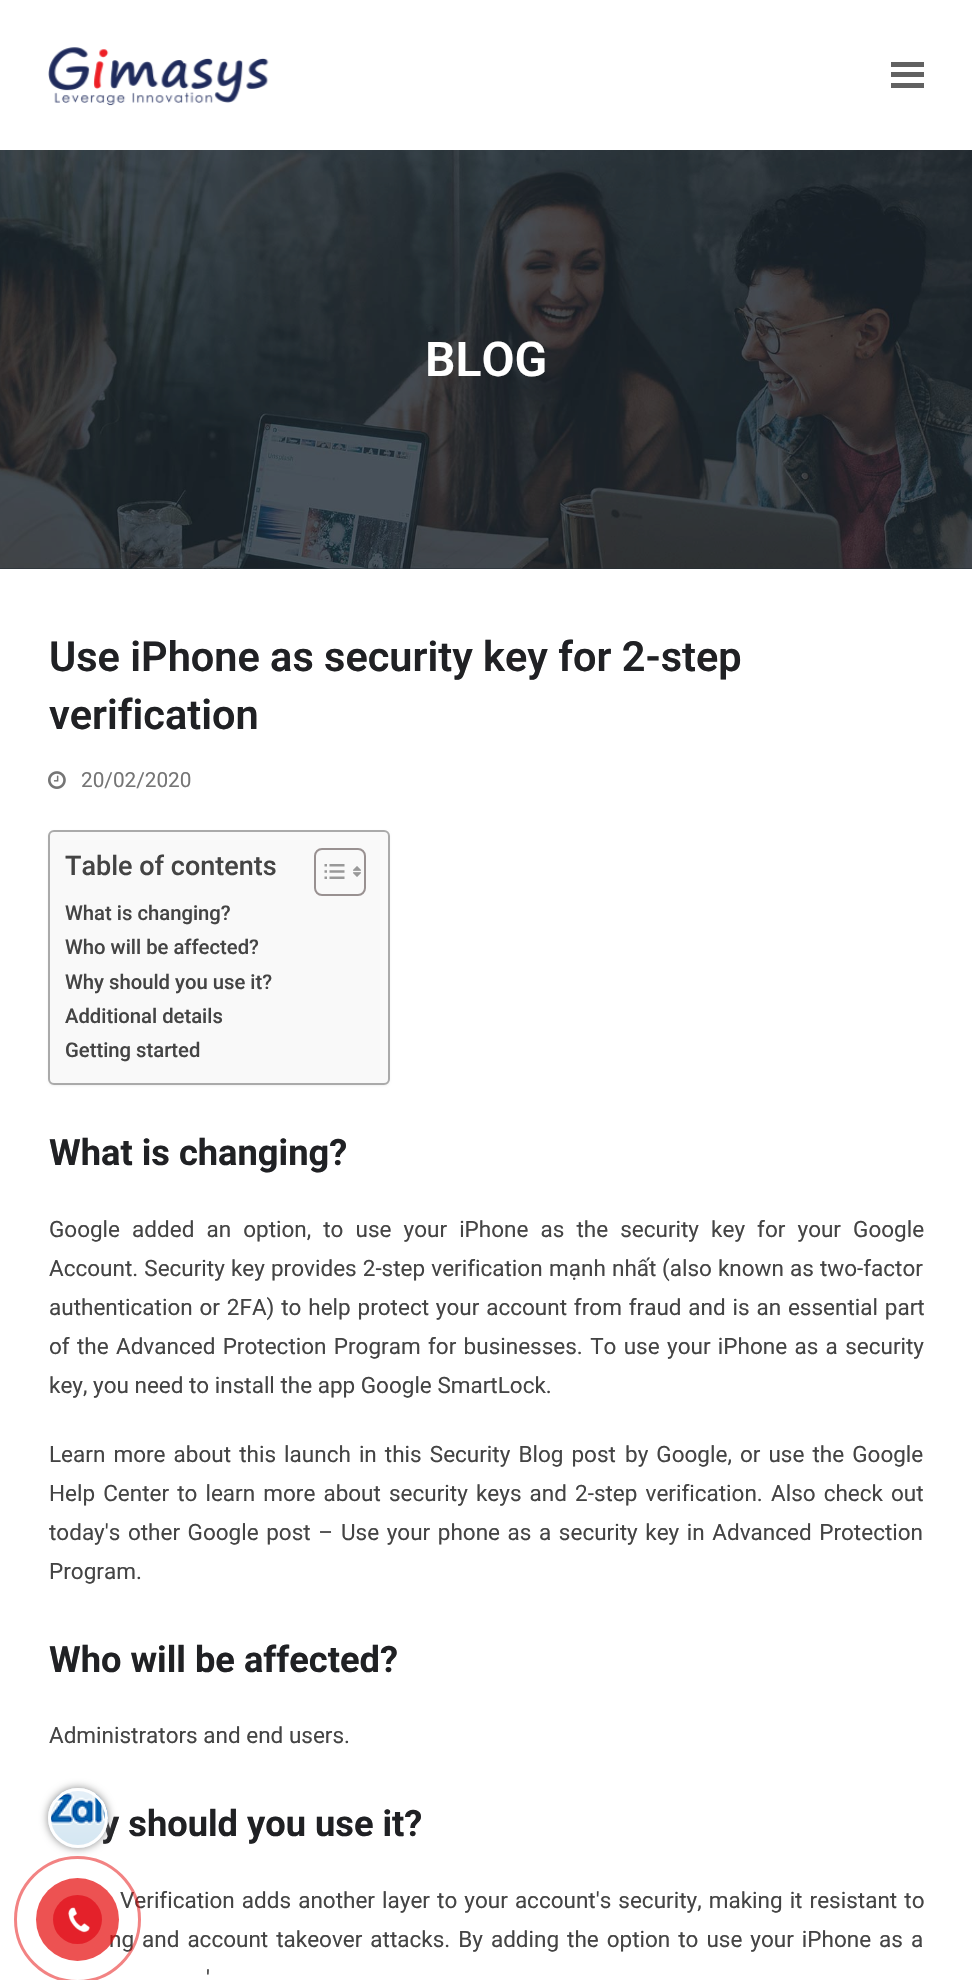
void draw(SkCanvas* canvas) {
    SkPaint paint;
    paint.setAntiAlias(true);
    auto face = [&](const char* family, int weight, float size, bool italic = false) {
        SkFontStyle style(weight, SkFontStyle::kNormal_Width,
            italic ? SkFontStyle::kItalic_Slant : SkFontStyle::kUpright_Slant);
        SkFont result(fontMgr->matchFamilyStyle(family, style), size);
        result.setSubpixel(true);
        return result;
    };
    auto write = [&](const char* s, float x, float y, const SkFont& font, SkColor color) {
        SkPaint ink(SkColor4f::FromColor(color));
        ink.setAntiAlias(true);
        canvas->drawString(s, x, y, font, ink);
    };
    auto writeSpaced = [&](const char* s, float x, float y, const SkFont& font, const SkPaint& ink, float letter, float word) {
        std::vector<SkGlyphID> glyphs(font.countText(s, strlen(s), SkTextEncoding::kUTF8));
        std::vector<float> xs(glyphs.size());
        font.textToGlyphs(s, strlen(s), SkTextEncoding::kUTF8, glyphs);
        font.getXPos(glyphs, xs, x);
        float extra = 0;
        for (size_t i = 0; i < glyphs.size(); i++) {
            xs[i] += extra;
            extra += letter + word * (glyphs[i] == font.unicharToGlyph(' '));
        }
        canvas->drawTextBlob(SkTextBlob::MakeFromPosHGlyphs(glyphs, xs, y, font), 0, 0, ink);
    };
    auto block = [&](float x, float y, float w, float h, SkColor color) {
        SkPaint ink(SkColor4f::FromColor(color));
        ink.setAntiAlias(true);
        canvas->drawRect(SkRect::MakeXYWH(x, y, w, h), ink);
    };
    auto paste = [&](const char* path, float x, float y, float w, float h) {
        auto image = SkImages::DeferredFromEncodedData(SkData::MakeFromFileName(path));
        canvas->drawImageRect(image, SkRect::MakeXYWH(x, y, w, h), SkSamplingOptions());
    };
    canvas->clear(SK_ColorWHITE);
    paste("pic1.png", 48, 47, 221, 59);
    block(891, 72, 33, 5, SkColorSetRGB(97, 97, 97));
    block(891, 62, 33, 5, SkColorSetRGB(97, 97, 97));
    block(891, 83, 33, 5, SkColorSetRGB(97, 97, 97));
    block(0, 568, 972, 1, SkColorSetRGB(34, 44, 52));
    paste("pic2.png", 0, 150, 972, 419);
    auto kFont1 = face("Roboto", 600, 48);
    write("BLOG", 425, 376, kFont1, SK_ColorWHITE);
    auto kFont2 = face("Roboto", 600, 41.5f);
    write("Use iPhone as security key for 2-step", 49, 671, kFont2, SkColorSetRGB(32, 33, 36));
    write("verification", 49, 729, kFont2, SkColorSetRGB(32, 33, 36));
    paste("pic3.png", 48, 771, 18, 18);
    auto kFont3 = face("Roboto", 400, 20.75f);
    write("20/02/2020", 81, 787, kFont3, SkColorSetRGB(117, 117, 117));
    paint.setColor(SkColorSetARGB(13, 0, 0, 0));
    paint.setMaskFilter(SkMaskFilter::MakeBlur(kNormal_SkBlurStyle, 1));
    canvas->drawRoundRect(SkRect::MakeXYWH(48, 831, 342, 255), 6, 6, paint);
    paint.setMaskFilter(nullptr);
    paint.setColor(SkColorSetRGB(249, 249, 249));
    canvas->drawRoundRect(SkRect::MakeXYWH(49, 831, 340, 253), 5, 5, paint);
    paint.setStyle(SkPaint::kStroke_Style);
    paint.setStrokeWidth(2);
    paint.setColor(SkColorSetRGB(170, 170, 170));
    canvas->drawRoundRect(SkRect::MakeXYWH(49, 831, 340, 253), 5, 5, paint);
    auto kFont4 = face("Roboto", 500, 27);
    write("Table of contents", 65, 875, kFont4, SkColorSetRGB(68, 68, 68));
    paint.setColor(SkColorSetRGB(153, 145, 145));
    canvas->drawRoundRect(SkRect::MakeXYWH(315, 849, 50, 46), 7, 7, paint);
    paste("pic4.png", 324, 864, 21, 15);
    paste("pic5.png", 353, 866, 8, 11);
    auto kFont5 = face("Roboto", 500, 20.25f);
    write("What is changing?", 65, 920, kFont5, SkColorSetRGB(68, 68, 68));
    write("Who will be affected?", 65, 954, kFont5, SkColorSetRGB(68, 68, 68));
    write("Why should you use it?", 65, 989, kFont5, SkColorSetRGB(68, 68, 68));
    write("Additional details", 65, 1023, kFont5, SkColorSetRGB(68, 68, 68));
    write("Getting started", 65, 1057, kFont5, SkColorSetRGB(68, 68, 68));
    auto kFont6 = face("Roboto", 700, 36.25f);
    write("What is changing?", 49, 1165, kFont6, SkColorSetRGB(32, 33, 36));
    auto kFont7 = face("Roboto", 400, 22.5f);
    paint.setStyle(SkPaint::kFill_Style);
    paint.setColor(SkColorSetRGB(68, 68, 68));
    writeSpaced("Google added an option, to use your iPhone as the security key for your Google", 49, 1237, kFont7, paint, 0, 6.5f);
    writeSpaced("Account. Security key provides 2-step verification", 49, 1276, kFont7, paint, 0, 0.5f);
    write("mạnh", 549, 1276, kFont7, SkColorSetRGB(68, 68, 68));
    write("nhất", 612, 1276, kFont7, SkColorSetRGB(68, 68, 68));
    writeSpaced("(also known as two-factor", 662, 1276, kFont7, paint, 0, 0.5f);
    writeSpaced("authentication or 2FA) to help protect your account from fraud and is an essential part", 49, 1315, kFont7, paint, 0, 1.25f);
    writeSpaced("of the Advanced Protection Program for businesses. To use your iPhone as a security", 49, 1354, kFont7, paint, 0, 1.75f);
    write("key, you need to install the app Google SmartLock.", 49, 1393, kFont7, SkColorSetRGB(68, 68, 68));
    writeSpaced("Learn more about this launch in this Security Blog post", 49, 1462, kFont7, paint, 0, 2.5f);
    writeSpaced("by Google, or use the Google", 625, 1462, kFont7, paint, 0, 2.5f);
    writeSpaced("Help Center to learn more about", 49, 1501, kFont7, paint, 0, 2.5f);
    writeSpaced("security keys and 2-step verification.", 389, 1501, kFont7, paint, 0, 2.5f);
    writeSpaced("Also check out", 771, 1501, kFont7, paint, 0, 2.5f);
    writeSpaced("today's other Google post –", 49, 1540, kFont7, paint, 0, 2);
    writeSpaced("Use your phone as a security key in Advanced Protection", 341, 1540, kFont7, paint, 0, 2);
    write("Program.", 49, 1579, kFont7, SkColorSetRGB(68, 68, 68));
    write("Who will be affected?", 49, 1672, kFont6, SkColorSetRGB(32, 33, 36));
    write("Administrators and end users.", 49, 1743, kFont7, SkColorSetRGB(68, 68, 68));
    write("y should you use it?", 101, 1836, kFont6, SkColorSetRGB(32, 33, 36));
    writeSpaced("Verification adds another layer to your account's security, making it resistant to", 120, 1908, kFont7, paint, 0, 1.5f);
    writeSpaced("ng and account takeover attacks. By adding the option to use your iPhone as a", 109, 1947, kFont7, paint, 0, 2.4f);
    write("'", 206, 1986, kFont7, SkColorSetRGB(68, 68, 68));
    paint.setColor(SkColorSetRGB(136, 136, 136));
    paint.setMaskFilter(SkMaskFilter::MakeBlur(kNormal_SkBlurStyle, 4));
    canvas->drawRoundRect(SkRect::MakeXYWH(48, 1788, 60, 60), 30, 30, paint);
    paint.setMaskFilter(nullptr);
    paste("pic6.png", 48, 1788, 60, 60);
    paint.setStyle(SkPaint::kStroke_Style);
    paint.setStrokeWidth(3);
    paint.setColor(SK_ColorWHITE);
    canvas->drawCircle(78, 1818, 28.5f, paint);
    paint.setColor(SkColorSetARGB(128, 230, 8, 8));
    canvas->drawCircle(77.5f, 1919.5f, 62, paint);
    paint.setStyle(SkPaint::kFill_Style);
    paint.setColor(SkColorSetARGB(179, 230, 8, 8));
    canvas->drawCircle(77.5f, 1919.5f, 41.5f, paint);
    paint.setColor(SkColorSetRGB(228, 33, 42));
    canvas->drawCircle(77.5f, 1919.5f, 24.5f, paint);
    paste("pic7.png", 68, 1907, 22, 26);
}
